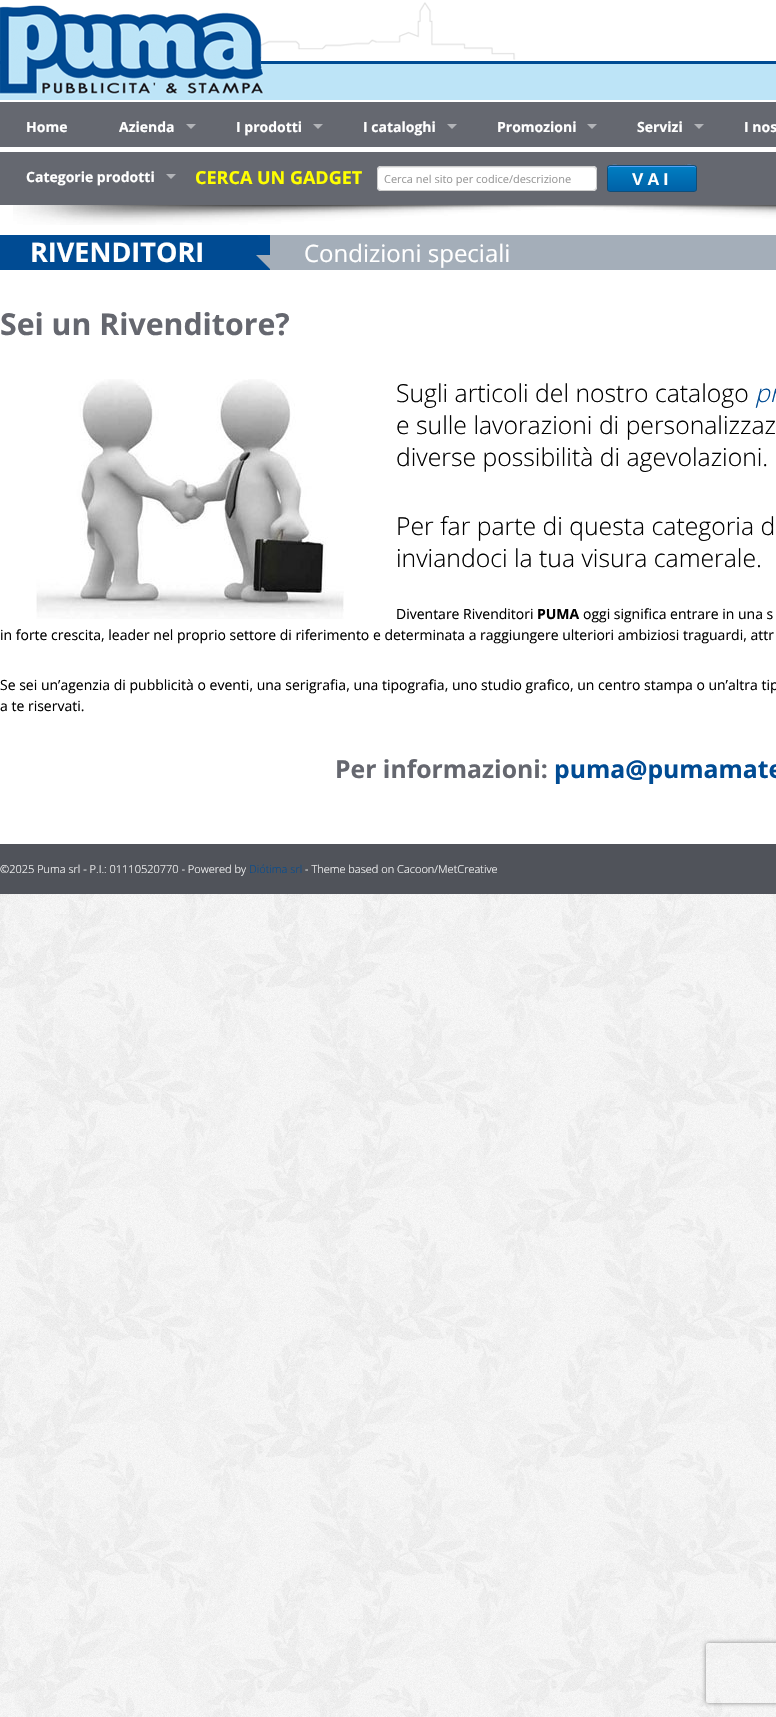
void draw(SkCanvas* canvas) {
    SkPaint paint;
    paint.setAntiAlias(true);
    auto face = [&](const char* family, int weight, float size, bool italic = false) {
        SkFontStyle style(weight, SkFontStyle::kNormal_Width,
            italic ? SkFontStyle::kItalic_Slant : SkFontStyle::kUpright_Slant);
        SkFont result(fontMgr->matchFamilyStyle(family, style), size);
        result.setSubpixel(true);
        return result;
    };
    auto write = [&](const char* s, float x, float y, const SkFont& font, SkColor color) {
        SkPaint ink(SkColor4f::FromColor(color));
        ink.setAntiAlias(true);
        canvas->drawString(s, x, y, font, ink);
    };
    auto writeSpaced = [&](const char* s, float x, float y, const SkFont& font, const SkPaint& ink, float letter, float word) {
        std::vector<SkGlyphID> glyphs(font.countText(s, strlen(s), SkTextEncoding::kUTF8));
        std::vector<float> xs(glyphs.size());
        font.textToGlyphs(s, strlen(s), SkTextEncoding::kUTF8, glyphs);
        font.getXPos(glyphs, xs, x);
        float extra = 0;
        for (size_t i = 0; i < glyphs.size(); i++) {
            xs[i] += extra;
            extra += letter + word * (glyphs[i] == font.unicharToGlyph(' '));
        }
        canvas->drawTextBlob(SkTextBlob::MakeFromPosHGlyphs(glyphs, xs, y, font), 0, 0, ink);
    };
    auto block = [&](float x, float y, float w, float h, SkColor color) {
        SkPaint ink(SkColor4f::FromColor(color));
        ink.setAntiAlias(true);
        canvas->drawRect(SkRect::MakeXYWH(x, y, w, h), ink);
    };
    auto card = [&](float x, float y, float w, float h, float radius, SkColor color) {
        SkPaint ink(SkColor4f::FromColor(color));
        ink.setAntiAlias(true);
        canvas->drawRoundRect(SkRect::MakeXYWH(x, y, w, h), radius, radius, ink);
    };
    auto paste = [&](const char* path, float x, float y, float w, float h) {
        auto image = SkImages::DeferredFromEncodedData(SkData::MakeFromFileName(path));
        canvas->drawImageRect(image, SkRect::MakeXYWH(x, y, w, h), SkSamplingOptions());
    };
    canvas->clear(SK_ColorWHITE);
    paste("pic1.png", 0, 894, 776, 823);
    paste("pic2.png", 0, 2, 776, 98);
    block(0, 102, 776, 103, SkColorSetRGB(101, 104, 112));
    auto kFont1 = face("Open Sans", 700, 14);
    write("Home", 26, 132, kFont1, SK_ColorWHITE);
    write("Azienda", 119, 132, kFont1, SK_ColorWHITE);
    paint.setColor(SkColorSetRGB(178, 180, 184));
    canvas->drawPath(SkPathBuilder().moveTo(186, 124).lineTo(196, 124).lineTo(191, 129).close().detach(), paint);
    write("I prodotti", 236, 132, kFont1, SK_ColorWHITE);
    canvas->drawPath(SkPathBuilder().moveTo(313, 124).lineTo(323, 124).lineTo(318, 129).close().detach(), paint);
    write("I cataloghi", 363, 132, kFont1, SK_ColorWHITE);
    canvas->drawPath(SkPathBuilder().moveTo(447, 124).lineTo(457, 124).lineTo(452, 129).close().detach(), paint);
    write("Promozioni", 497, 132, kFont1, SK_ColorWHITE);
    canvas->drawPath(SkPathBuilder().moveTo(587, 124).lineTo(597, 124).lineTo(592, 129).close().detach(), paint);
    write("Servizi", 637, 132, kFont1, SK_ColorWHITE);
    canvas->drawPath(SkPathBuilder().moveTo(694, 124).lineTo(704, 124).lineTo(699, 129).close().detach(), paint);
    write("I nos", 744, 132, kFont1, SK_ColorWHITE);
    write("Categorie prodotti", 26, 182, kFont1, SK_ColorWHITE);
    canvas->drawPath(SkPathBuilder().moveTo(166, 174).lineTo(176, 174).lineTo(171, 179).close().detach(), paint);
    auto kFont2 = face("Open Sans", 700, 18);
    write("CERCA UN GADGET", 195, 184, kFont2, SkColorSetRGB(255, 255, 0));
    card(377, 166, 220, 25, 4, SK_ColorWHITE);
    paint.setColor(SkColorSetRGB(236, 236, 236));
    canvas->drawPath(SkPathBuilder().moveTo(381, 168).lineTo(593, 168).cubicTo(595, 168, 596, 169, 596, 171).lineTo(596, 170).cubicTo(596, 168, 595, 167, 593, 167).lineTo(381, 167).cubicTo(379, 167, 378, 168, 378, 170).lineTo(378, 171).cubicTo(378, 169, 379, 168, 381, 168).close().detach(), paint);
    paint.setStyle(SkPaint::kStroke_Style);
    paint.setStrokeWidth(1);
    paint.setColor(SkColorSetRGB(204, 204, 204));
    canvas->drawRoundRect(SkRect::MakeXYWH(377.5f, 166.5f, 219, 24), 3.5f, 3.5f, paint);
    auto kFont3 = face("Open Sans", 400, 11);
    write("Cerca nel sito per codice/descrizione", 384, 183, kFont3, SkColorSetRGB(153, 153, 153));
    canvas->save();
    canvas->clipPath(SkPathBuilder().moveTo(610, 165).lineTo(694, 165).cubicTo(695.5f, 165, 697, 166.5f, 697, 168).lineTo(697, 189).cubicTo(697, 190.5f, 695.5f, 192, 694, 192).lineTo(610, 192).cubicTo(608.5f, 192, 607, 190.5f, 607, 189).lineTo(607, 168).cubicTo(607, 166.5f, 608.5f, 165, 610, 165).close().detach(), true);
    paint.setStyle(SkPaint::kFill_Style);
    {
        const SkColor colors[] = {SkColorSetRGB(0, 125, 193), SkColorSetRGB(0, 97, 167)};
        const float stops[] = {0.05f, 1};
        const SkPoint ends[] = {{652, 166}, {652, 191}};
        paint.setShader(SkGradientShader::MakeLinear(ends, colors, stops, 2, SkTileMode::kClamp));
        paint.setAlpha(255);
    }
    canvas->drawRect(SkRect::MakeXYWH(607, 166, 90, 25), paint);
    canvas->restore();
    paint.setShader(nullptr);
    paint.setColor(SkColorSetRGB(84, 163, 247));
    canvas->drawPath(SkPathBuilder().moveTo(610, 167).lineTo(694, 167).cubicTo(695, 167, 696, 168, 696, 169).cubicTo(696, 162, 682, 166, 680, 166).lineTo(624, 166).cubicTo(622, 166, 608, 162, 608, 169).cubicTo(608, 168, 609, 167, 610, 167).close().detach(), paint);
    paint.setStyle(SkPaint::kStroke_Style);
    paint.setColor(SkColorSetRGB(18, 77, 119));
    canvas->drawRoundRect(SkRect::MakeXYWH(607.5f, 165.5f, 89, 26), 2.5f, 2.5f, paint);
    auto kFont4 = face("Liberation Sans", 700, 17);
    paint.setStyle(SkPaint::kFill_Style);
    paint.setColor(SK_ColorWHITE);
    writeSpaced("VAI", 632, 185, kFont4, paint, 4, 0);
    block(0, 147, 776, 5, SK_ColorWHITE);
    paste("pic3.png", 13, 205, 763, 20);
    block(270, 235, 506, 35, SkColorSetRGB(164, 174, 185));
    block(0, 235, 270, 35, SkColorSetRGB(0, 75, 147));
    auto kFont5 = face("Open Sans", 700, 27);
    write("RIVENDITORI", 30, 262, kFont5, SK_ColorWHITE);
    paint.setColor(SkColorSetRGB(164, 174, 185));
    canvas->drawPath(SkPathBuilder().moveTo(271, 255).lineTo(271, 270).lineTo(256, 255).close().detach(), paint);
    auto kFont6 = face("Open Sans", 400, 24);
    write("Condizioni speciali", 304, 262, kFont6, SK_ColorWHITE);
    auto kFont7 = face("Open Sans", 700, 30.25f);
    write("Sei un Rivenditore?", 0, 335, kFont7, SkColorSetRGB(101, 103, 111));
    paste("pic4.png", 36, 379, 308, 240);
    auto kFont8 = face("Open Sans", 300, 24.75f);
    write("Sugli articoli del nostro catalogo", 396, 402, kFont8, SK_ColorBLACK);
    auto kFont9 = face("Open Sans", 300, 24.75f, true);
    write("pr", 755, 402, kFont9, SkColorSetRGB(0, 75, 147));
    write("e sulle lavorazioni di personalizzaz", 396, 434, kFont8, SK_ColorBLACK);
    write("diverse possibilità di agevolazioni.", 396, 466, kFont8, SK_ColorBLACK);
    write("Per far parte di questa categoria d", 396, 535, kFont8, SK_ColorBLACK);
    write("inviandoci la tua visura camerale.", 396, 567, kFont8, SK_ColorBLACK);
    auto kFont10 = face("Open Sans", 400, 14);
    write("Diventare Rivenditori", 396, 619, kFont10, SK_ColorBLACK);
    write("PUMA", 537, 619, kFont1, SK_ColorBLACK);
    write("oggi significa entrare in una s", 583, 619, kFont10, SK_ColorBLACK);
    write("in forte crescita, leader nel proprio settore di riferimento e determinata a raggiungere ulteriori ambiziosi traguardi, attr", 0, 640, kFont10, SK_ColorBLACK);
    write("Se sei un’agenzia di pubblicità o eventi, una serigrafia, una tipografia, uno studio grafico, un centro stampa o un’altra tip", 0, 690, kFont10, SK_ColorBLACK);
    write("a te riservati.", 0, 711, kFont10, SK_ColorBLACK);
    auto kFont11 = face("Open Sans", 700, 24.75f);
    write("Per informazioni:", 335, 778, kFont11, SkColorSetRGB(101, 103, 111));
    write("puma@pumamate", 554, 778, kFont11, SkColorSetRGB(0, 75, 147));
    block(0, 844, 776, 50, SkColorSetRGB(80, 83, 90));
    auto kFont12 = face("Open Sans", 300, 11);
    write("©2025 Puma srl - P.I.: 01110520770 - Powered by", 0, 873, kFont12, SK_ColorWHITE);
    write("Diótima srl", 249, 873, kFont12, SkColorSetRGB(0, 75, 147));
    write("- Theme based on Cacoon/MetCreative", 305, 873, kFont12, SK_ColorWHITE);
    canvas->save();
    canvas->clipPath(SkPathBuilder(SkPathFillType::kEvenOdd).moveTo(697, 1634).lineTo(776, 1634).lineTo(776, 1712).lineTo(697, 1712).close().moveTo(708, 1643).lineTo(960, 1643).cubicTo(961, 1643, 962, 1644, 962, 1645).lineTo(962, 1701).cubicTo(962, 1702, 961, 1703, 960, 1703).lineTo(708, 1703).cubicTo(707, 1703, 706, 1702, 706, 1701).lineTo(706, 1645).cubicTo(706, 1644, 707, 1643, 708, 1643).close().detach(), true);
    paint.setColor(SkColorSetRGB(128, 128, 128));
    paint.setMaskFilter(SkMaskFilter::MakeBlur(kNormal_SkBlurStyle, 2.5f));
    canvas->drawRoundRect(SkRect::MakeXYWH(706, 1643, 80, 60), 2, 2, paint);
    paint.setMaskFilter(nullptr);
    canvas->restore();
}
